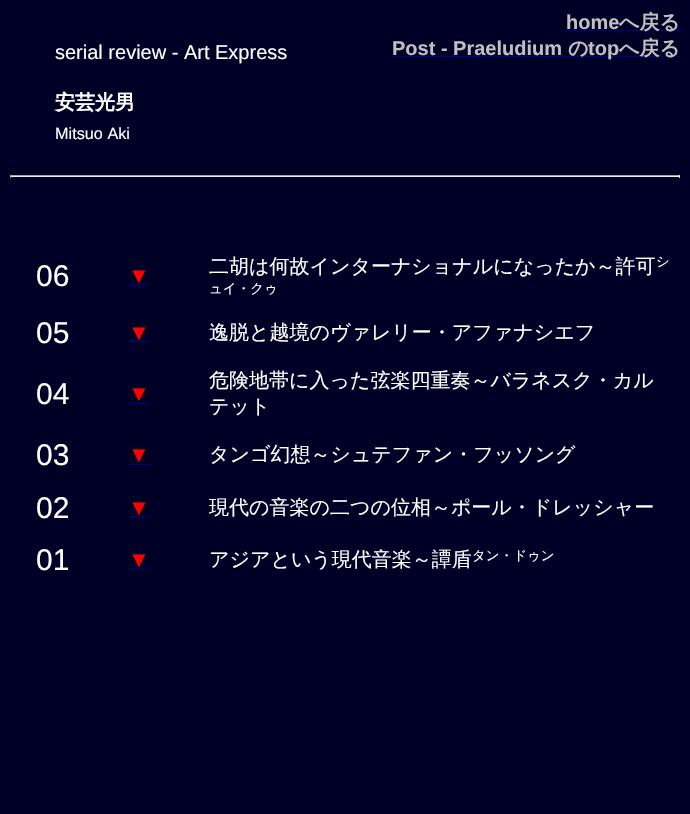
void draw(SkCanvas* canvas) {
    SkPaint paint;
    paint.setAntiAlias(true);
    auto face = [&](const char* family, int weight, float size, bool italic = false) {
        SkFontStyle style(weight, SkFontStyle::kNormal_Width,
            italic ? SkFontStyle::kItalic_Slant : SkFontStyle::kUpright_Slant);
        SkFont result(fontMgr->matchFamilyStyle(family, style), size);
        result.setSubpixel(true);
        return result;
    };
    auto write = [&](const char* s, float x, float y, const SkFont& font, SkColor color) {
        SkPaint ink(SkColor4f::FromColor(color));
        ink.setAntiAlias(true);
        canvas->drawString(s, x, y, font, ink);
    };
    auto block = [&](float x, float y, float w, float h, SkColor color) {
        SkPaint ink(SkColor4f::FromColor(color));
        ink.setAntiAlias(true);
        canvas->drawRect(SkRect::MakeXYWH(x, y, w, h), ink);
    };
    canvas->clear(SkColorSetRGB(0, 0, 38));
    auto kFont1 = face("Liberation Sans", 700, 20);
    write("home", 566, 29, kFont1, SkColorSetRGB(192, 192, 192));
    block(566, 30, 114, 1, SkColorSetRGB(0, 0, 128));
    auto kFont2 = face("WenQuanYi Zen Hei", 700, 20);
    write("へ戻る", 619, 29, kFont2, SkColorSetRGB(192, 192, 192));
    write("Post - Praeludium", 392, 55, kFont1, SkColorSetRGB(192, 192, 192));
    block(393, 56, 287, 1, SkColorSetRGB(0, 0, 128));
    write("の", 568, 55, kFont2, SkColorSetRGB(192, 192, 192));
    write("top", 588, 55, kFont1, SkColorSetRGB(192, 192, 192));
    write("へ戻る", 619, 55, kFont2, SkColorSetRGB(192, 192, 192));
    auto kFont3 = face("Liberation Sans", 400, 20);
    write("serial review - Art Express", 55, 59, kFont3, SK_ColorWHITE);
    write("安芸光男", 55, 109, kFont2, SK_ColorWHITE);
    auto kFont4 = face("Liberation Sans", 400, 16.25f);
    write("Mitsuo Aki", 55, 139, kFont4, SK_ColorWHITE);
    block(10, 175, 670, 1, SkColorSetRGB(159, 159, 159));
    block(679, 175, 1, 3, SkColorSetRGB(238, 238, 238));
    block(10, 176, 670, 1, SkColorSetRGB(238, 238, 238));
    block(10, 175, 1, 3, SkColorSetRGB(159, 159, 159));
    auto kFont5 = face("Liberation Sans", 400, 30);
    write("06", 36, 286, kFont5, SK_ColorWHITE);
    auto kFont6 = face("Liberation Serif", 400, 22);
    write("▼", 128, 283, kFont6, SkColorSetRGB(255, 0, 0));
    block(128, 284, 22, 1, SkColorSetRGB(0, 0, 128));
    auto kFont7 = face("WenQuanYi Zen Hei", 500, 20);
    write("二胡は何故インターナショナルになったか～許可", 209, 273, kFont7, SK_ColorWHITE);
    auto kFont8 = face("WenQuanYi Zen Hei", 500, 13.5f);
    write("シ", 656, 266, kFont8, SK_ColorWHITE);
    write("ュイ・クゥ", 209, 293, kFont8, SK_ColorWHITE);
    write("05", 36, 343, kFont5, SK_ColorWHITE);
    write("▼", 128, 340, kFont6, SkColorSetRGB(255, 0, 0));
    block(128, 341, 22, 1, SkColorSetRGB(0, 0, 128));
    write("逸脱と越境のヴァレリー・アファナシエフ", 209, 339, kFont7, SK_ColorWHITE);
    write("04", 36, 404, kFont5, SK_ColorWHITE);
    write("▼", 128, 401, kFont6, SkColorSetRGB(255, 0, 0));
    block(128, 403, 22, 1, SkColorSetRGB(0, 0, 128));
    write("危険地帯に入った弦楽四重奏～バラネスク・カル", 209, 387, kFont7, SK_ColorWHITE);
    write("テット", 209, 413, kFont7, SK_ColorWHITE);
    write("03", 36, 465, kFont5, SK_ColorWHITE);
    write("▼", 128, 462, kFont6, SkColorSetRGB(255, 0, 0));
    block(128, 464, 22, 1, SkColorSetRGB(0, 0, 128));
    write("タンゴ幻想～シュテファン・フッソング", 209, 461, kFont7, SK_ColorWHITE);
    write("02", 36, 518, kFont5, SK_ColorWHITE);
    write("▼", 128, 515, kFont6, SkColorSetRGB(255, 0, 0));
    block(128, 516, 22, 1, SkColorSetRGB(0, 0, 128));
    write("現代の音楽の二つの位相～ポール・ドレッシャー", 209, 514, kFont7, SK_ColorWHITE);
    write("01", 36, 570, kFont5, SK_ColorWHITE);
    write("▼", 128, 567, kFont6, SkColorSetRGB(255, 0, 0));
    block(128, 569, 22, 1, SkColorSetRGB(0, 0, 128));
    write("アジアという現代音楽～譚盾", 209, 566, kFont7, SK_ColorWHITE);
    write("タン・ドゥン", 472, 560, kFont8, SK_ColorWHITE);
}
